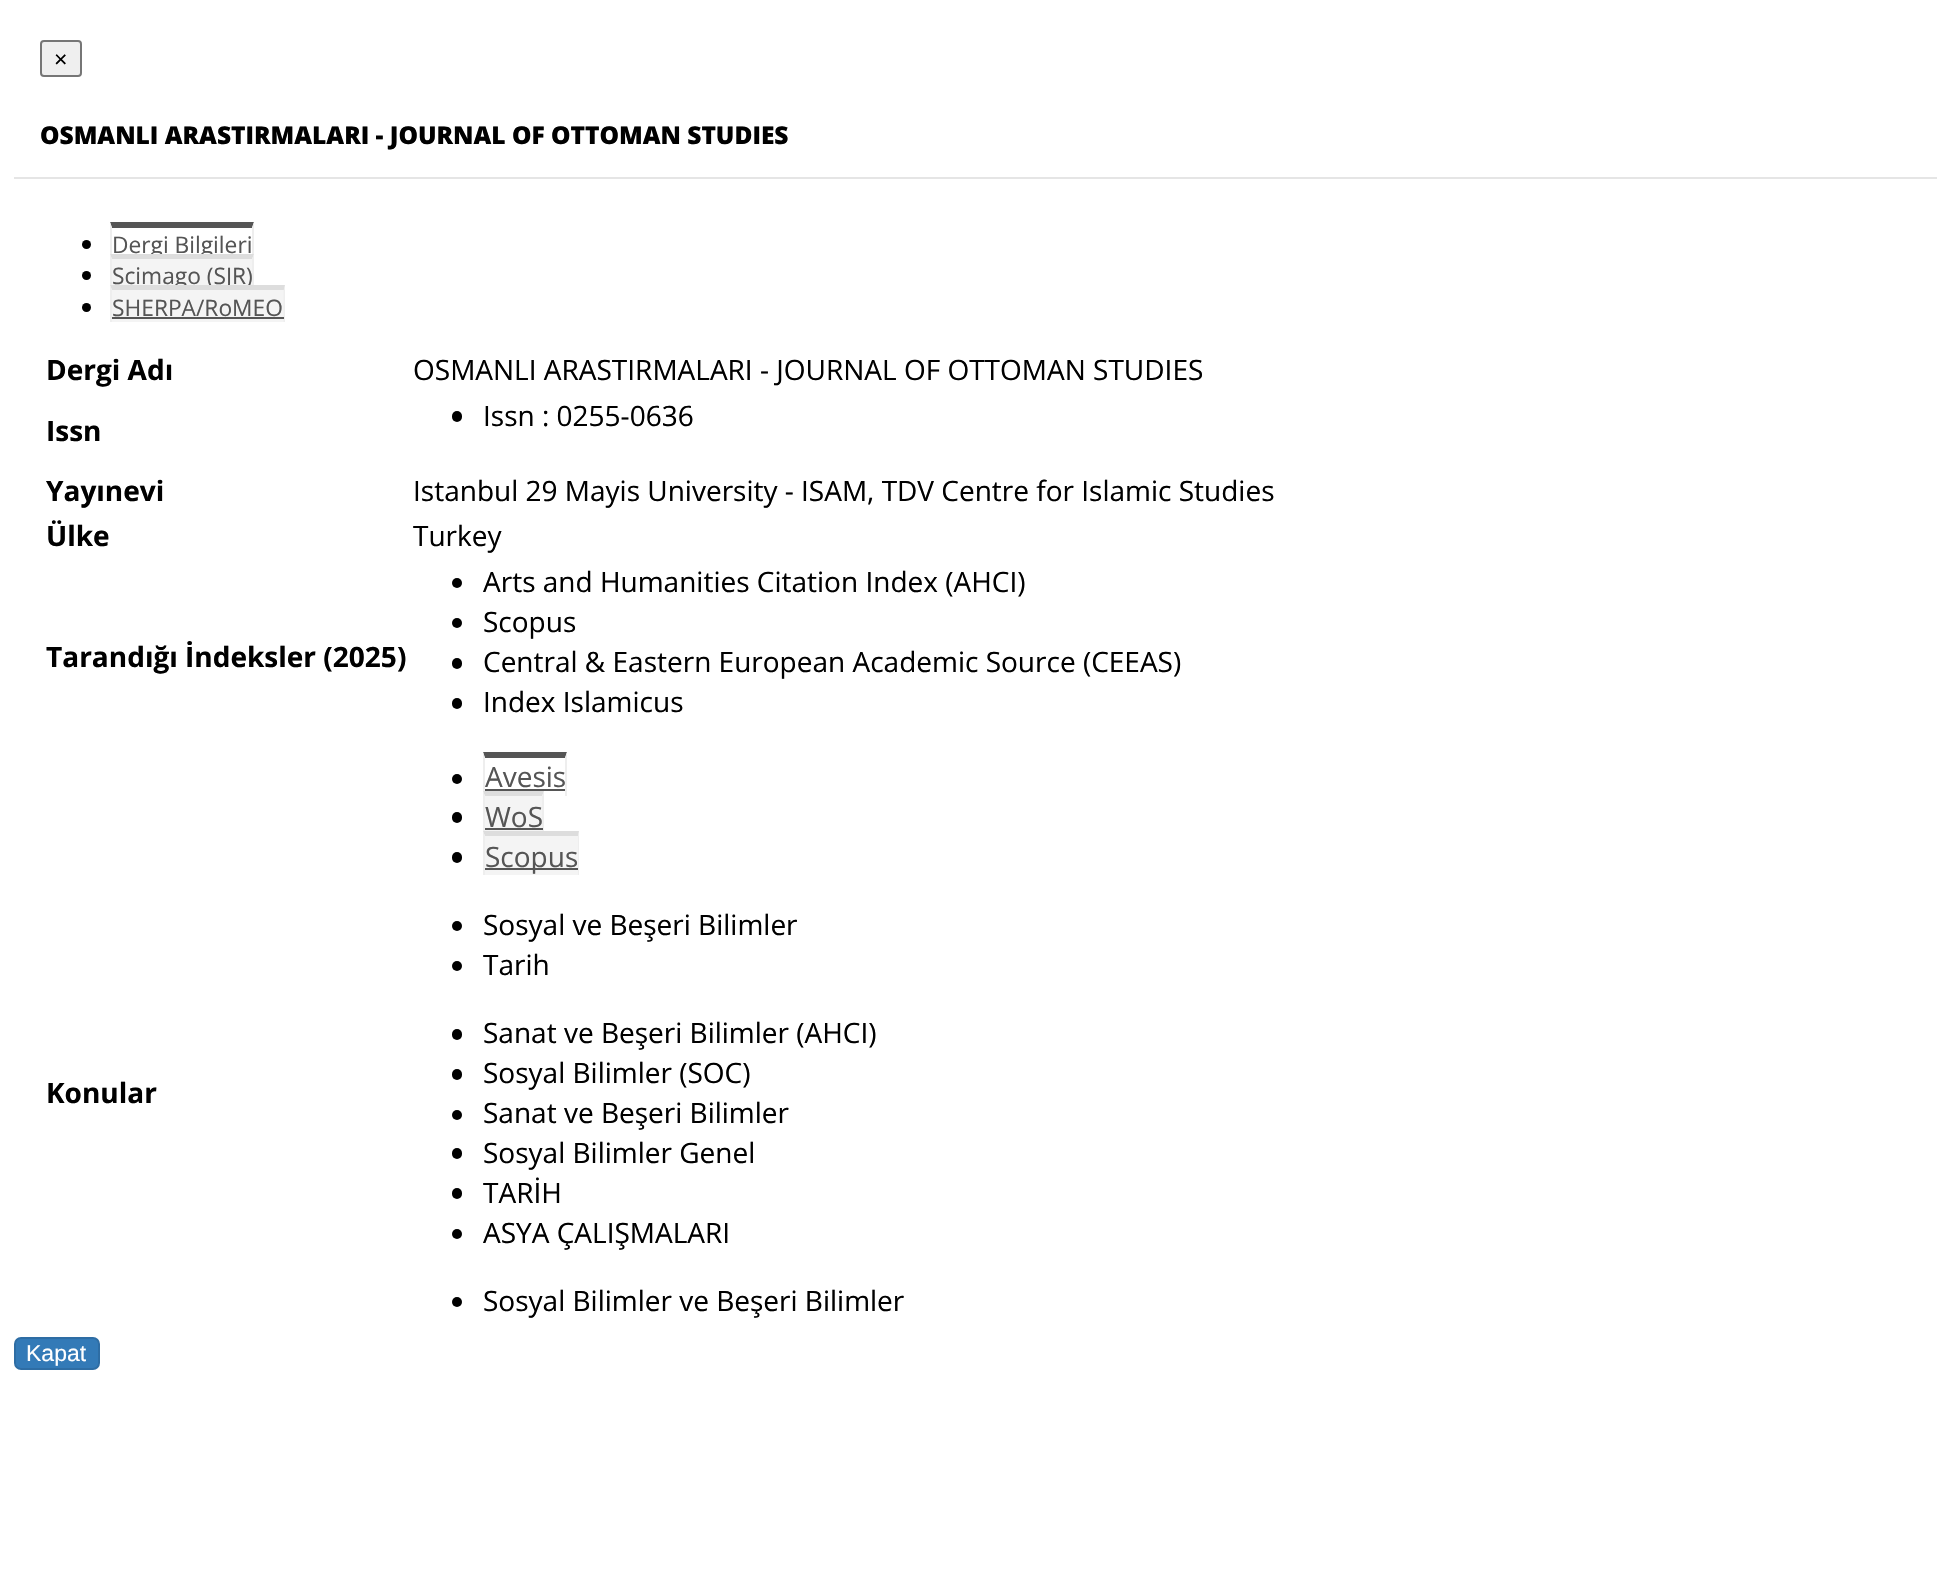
void draw(SkCanvas* canvas) {
    SkPaint paint;
    paint.setAntiAlias(true);
    auto face = [&](const char* family, int weight, float size, bool italic = false) {
        SkFontStyle style(weight, SkFontStyle::kNormal_Width,
            italic ? SkFontStyle::kItalic_Slant : SkFontStyle::kUpright_Slant);
        SkFont result(fontMgr->matchFamilyStyle(family, style), size);
        result.setSubpixel(true);
        return result;
    };
    auto write = [&](const char* s, float x, float y, const SkFont& font, SkColor color) {
        SkPaint ink(SkColor4f::FromColor(color));
        ink.setAntiAlias(true);
        canvas->drawString(s, x, y, font, ink);
    };
    auto block = [&](float x, float y, float w, float h, SkColor color) {
        SkPaint ink(SkColor4f::FromColor(color));
        ink.setAntiAlias(true);
        canvas->drawRect(SkRect::MakeXYWH(x, y, w, h), ink);
    };
    auto card = [&](float x, float y, float w, float h, float radius, SkColor color) {
        SkPaint ink(SkColor4f::FromColor(color));
        ink.setAntiAlias(true);
        canvas->drawRoundRect(SkRect::MakeXYWH(x, y, w, h), radius, radius, ink);
    };
    canvas->clear(SK_ColorWHITE);
    block(14, 177, 1923, 2, SkColorSetRGB(229, 229, 229));
    paint.setColor(SkColorSetRGB(239, 239, 239));
    canvas->drawRoundRect(SkRect::MakeXYWH(41, 41, 40, 35), 3, 3, paint);
    paint.setStyle(SkPaint::kStroke_Style);
    paint.setStrokeWidth(2);
    paint.setColor(SkColorSetRGB(118, 118, 118));
    canvas->drawRoundRect(SkRect::MakeXYWH(41, 41, 40, 35), 3, 3, paint);
    auto kFont1 = face("Liberation Sans", 400, 23);
    write("×", 54, 67, kFont1, SK_ColorBLACK);
    auto kFont2 = face("Open Sans", 800, 24.5f);
    write("OSMANLI ARASTIRMALARI - JOURNAL OF OTTOMAN STUDIES", 40, 144, kFont2, SK_ColorBLACK);
    paint.setStyle(SkPaint::kFill_Style);
    paint.setColor(SK_ColorBLACK);
    canvas->drawCircle(86.5f, 244.5f, 4.5f, paint);
    auto kFont3 = face("Open Sans", 400, 22.75f);
    write("Dergi Bilgileri", 112, 253, kFont3, SkColorSetRGB(85, 85, 85));
    paint.setColor(SkColorSetRGB(85, 85, 85));
    canvas->drawPath(SkPathBuilder().moveTo(110, 222).lineTo(254, 222).lineTo(252, 228).lineTo(112, 228).close().detach(), paint);
    paint.setColor(SkColorSetRGB(238, 238, 238));
    canvas->drawPath(SkPathBuilder().moveTo(254, 222).lineTo(254, 259).lineTo(252, 259).lineTo(252, 227.5f).close().detach(), paint);
    canvas->drawPath(SkPathBuilder().moveTo(110, 259).lineTo(110, 222).lineTo(112, 227.5f).lineTo(112, 259).close().detach(), paint);
    paint.setColor(SK_ColorBLACK);
    canvas->drawCircle(86.5f, 275.5f, 4.5f, paint);
    block(110, 254, 144, 31, SkColorSetRGB(244, 244, 244));
    write("Scimago (SJR)", 112, 284, kFont3, SkColorSetRGB(85, 85, 85));
    paint.setColor(SkColorSetRGB(221, 221, 221));
    canvas->drawPath(SkPathBuilder().moveTo(110, 254).lineTo(254, 254).lineTo(252, 259).lineTo(112, 259).close().detach(), paint);
    paint.setColor(SkColorSetRGB(238, 238, 238));
    canvas->drawPath(SkPathBuilder().moveTo(254, 254).lineTo(254, 290.5f).lineTo(252, 290.5f).lineTo(252, 259).close().detach(), paint);
    canvas->drawPath(SkPathBuilder().moveTo(110, 290.5f).lineTo(110, 254).lineTo(112, 259).lineTo(112, 290.5f).close().detach(), paint);
    paint.setColor(SK_ColorBLACK);
    canvas->drawCircle(86.5f, 307.5f, 4.5f, paint);
    block(110, 285, 175, 37, SkColorSetRGB(244, 244, 244));
    write("SHERPA/RoMEO", 112, 316, kFont3, SkColorSetRGB(85, 85, 85));
    paint.setColor(SkColorSetRGB(221, 221, 221));
    canvas->drawPath(SkPathBuilder().moveTo(110, 285).lineTo(285, 285).lineTo(284, 290).lineTo(112, 290).close().detach(), paint);
    paint.setColor(SkColorSetRGB(238, 238, 238));
    canvas->drawPath(SkPathBuilder().moveTo(285, 285).lineTo(285, 322).lineTo(283.5f, 322).lineTo(283.5f, 290.5f).close().detach(), paint);
    canvas->drawPath(SkPathBuilder().moveTo(110, 322).lineTo(110, 285).lineTo(112, 290.5f).lineTo(112, 322).close().detach(), paint);
    block(112, 317, 172, 2, SkColorSetRGB(85, 85, 85));
    auto kFont4 = face("Open Sans", 700, 28);
    write("Dergi Adı", 46, 380, kFont4, SK_ColorBLACK);
    auto kFont5 = face("Open Sans", 400, 28);
    write("OSMANLI ARASTIRMALARI - JOURNAL OF OTTOMAN STUDIES", 413, 380, kFont5, SK_ColorBLACK);
    card(452, 411, 10, 11, 5, SK_ColorBLACK);
    write("Issn : 0255-0636", 483, 426, kFont5, SK_ColorBLACK);
    write("Issn", 46, 441, kFont4, SK_ColorBLACK);
    write("Yayınevi", 46, 501, kFont4, SK_ColorBLACK);
    write("Istanbul 29 Mayis University - ISAM, TDV Centre for Islamic Studies", 413, 501, kFont5, SK_ColorBLACK);
    write("Ülke", 46, 546, kFont4, SK_ColorBLACK);
    write("Turkey", 413, 546, kFont5, SK_ColorBLACK);
    write("Tarandığı İndeksler (2025)", 46, 667, kFont4, SK_ColorBLACK);
    paint.setColor(SK_ColorBLACK);
    canvas->drawCircle(457, 583, 5, paint);
    write("Arts and Humanities Citation Index (AHCI)", 483, 592, kFont5, SK_ColorBLACK);
    canvas->drawCircle(457, 623, 5, paint);
    write("Scopus", 483, 632, kFont5, SK_ColorBLACK);
    card(452, 658, 10, 11, 5, SK_ColorBLACK);
    write("Central & Eastern European Academic Source (CEEAS)", 483, 672, kFont5, SK_ColorBLACK);
    card(452, 698, 10, 11, 5, SK_ColorBLACK);
    write("Index Islamicus", 483, 712, kFont5, SK_ColorBLACK);
    write("Konular", 46, 1103, kFont4, SK_ColorBLACK);
    canvas->drawCircle(457, 779, 5, paint);
    paint.setColor(SkColorSetRGB(85, 85, 85));
    canvas->drawPath(SkPathBuilder().moveTo(483, 752).lineTo(567, 752).lineTo(565, 758).lineTo(485, 758).close().detach(), paint);
    paint.setColor(SkColorSetRGB(238, 238, 238));
    canvas->drawPath(SkPathBuilder().moveTo(483, 796).lineTo(483, 752).lineTo(485, 758).lineTo(485, 796).close().detach(), paint);
    write("Avesis", 485, 787, kFont5, SkColorSetRGB(85, 85, 85));
    canvas->drawPath(SkPathBuilder().moveTo(567, 752).lineTo(567, 796).lineTo(565, 796).lineTo(565, 758).close().detach(), paint);
    block(485, 789, 80, 2, SkColorSetRGB(85, 85, 85));
    card(452, 812, 10, 11, 5, SK_ColorBLACK);
    block(483, 791, 61, 40, SkColorSetRGB(244, 244, 244));
    paint.setColor(SkColorSetRGB(221, 221, 221));
    canvas->drawPath(SkPathBuilder().moveTo(483, 791).lineTo(544, 791).lineTo(542, 796).lineTo(485, 796).close().detach(), paint);
    paint.setColor(SkColorSetRGB(238, 238, 238));
    canvas->drawPath(SkPathBuilder().moveTo(544, 791).lineTo(544, 835).lineTo(542, 835).lineTo(542, 796).close().moveTo(483, 835).lineTo(483, 791).lineTo(485, 796).lineTo(485, 835).close().detach(), paint);
    write("WoS", 485, 827, kFont5, SkColorSetRGB(85, 85, 85));
    block(485, 828, 58, 2, SkColorSetRGB(85, 85, 85));
    card(452, 852, 10, 11, 5, SK_ColorBLACK);
    block(483, 831, 96, 44, SkColorSetRGB(244, 244, 244));
    block(485, 868, 93, 2, SkColorSetRGB(85, 85, 85));
    write("Scopus", 485, 867, kFont5, SkColorSetRGB(85, 85, 85));
    paint.setColor(SkColorSetRGB(221, 221, 221));
    canvas->drawPath(SkPathBuilder().moveTo(483, 831).lineTo(579, 831).lineTo(578, 836).lineTo(485, 836).close().detach(), paint);
    paint.setColor(SkColorSetRGB(238, 238, 238));
    canvas->drawPath(SkPathBuilder().moveTo(579, 831).lineTo(579, 875).lineTo(578, 875).lineTo(578, 836).close().detach(), paint);
    canvas->drawPath(SkPathBuilder().moveTo(483, 875).lineTo(483, 831).lineTo(485, 836).lineTo(485, 875).close().detach(), paint);
    paint.setColor(SK_ColorBLACK);
    canvas->drawCircle(457, 926, 5, paint);
    write("Sosyal ve Beşeri Bilimler", 483, 935, kFont5, SK_ColorBLACK);
    canvas->drawCircle(457, 966, 5, paint);
    write("Tarih", 483, 975, kFont5, SK_ColorBLACK);
    card(452, 1029, 10, 11, 5, SK_ColorBLACK);
    write("Sanat ve Beşeri Bilimler (AHCI)", 483, 1043, kFont5, SK_ColorBLACK);
    card(452, 1069, 10, 11, 5, SK_ColorBLACK);
    write("Sosyal Bilimler (SOC)", 483, 1083, kFont5, SK_ColorBLACK);
    canvas->drawCircle(457, 1115, 5, paint);
    write("Sanat ve Beşeri Bilimler", 483, 1123, kFont5, SK_ColorBLACK);
    card(452, 1148, 10, 11, 5, SK_ColorBLACK);
    write("Sosyal Bilimler Genel", 483, 1163, kFont5, SK_ColorBLACK);
    card(452, 1188, 10, 11, 5, SK_ColorBLACK);
    write("TARİH", 483, 1203, kFont5, SK_ColorBLACK);
    canvas->drawCircle(457, 1234, 5, paint);
    write("ASYA ÇALIŞMALARI", 483, 1243, kFont5, SK_ColorBLACK);
    canvas->drawCircle(457, 1302, 5, paint);
    write("Sosyal Bilimler ve Beşeri Bilimler", 483, 1311, kFont5, SK_ColorBLACK);
    paint.setColor(SkColorSetRGB(51, 122, 183));
    canvas->drawRoundRect(SkRect::MakeXYWH(15, 1338, 84, 31), 6, 6, paint);
    paint.setStyle(SkPaint::kStroke_Style);
    paint.setColor(SkColorSetRGB(46, 109, 164));
    canvas->drawRoundRect(SkRect::MakeXYWH(15, 1338, 84, 31), 6, 6, paint);
    write("Kapat", 26, 1361, kFont1, SK_ColorWHITE);
}
